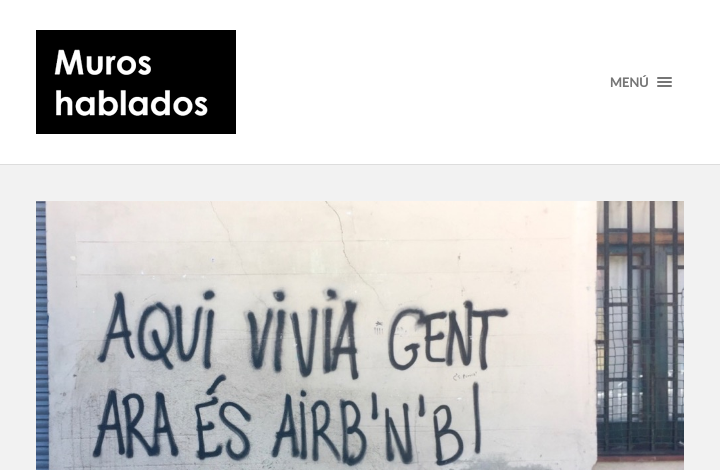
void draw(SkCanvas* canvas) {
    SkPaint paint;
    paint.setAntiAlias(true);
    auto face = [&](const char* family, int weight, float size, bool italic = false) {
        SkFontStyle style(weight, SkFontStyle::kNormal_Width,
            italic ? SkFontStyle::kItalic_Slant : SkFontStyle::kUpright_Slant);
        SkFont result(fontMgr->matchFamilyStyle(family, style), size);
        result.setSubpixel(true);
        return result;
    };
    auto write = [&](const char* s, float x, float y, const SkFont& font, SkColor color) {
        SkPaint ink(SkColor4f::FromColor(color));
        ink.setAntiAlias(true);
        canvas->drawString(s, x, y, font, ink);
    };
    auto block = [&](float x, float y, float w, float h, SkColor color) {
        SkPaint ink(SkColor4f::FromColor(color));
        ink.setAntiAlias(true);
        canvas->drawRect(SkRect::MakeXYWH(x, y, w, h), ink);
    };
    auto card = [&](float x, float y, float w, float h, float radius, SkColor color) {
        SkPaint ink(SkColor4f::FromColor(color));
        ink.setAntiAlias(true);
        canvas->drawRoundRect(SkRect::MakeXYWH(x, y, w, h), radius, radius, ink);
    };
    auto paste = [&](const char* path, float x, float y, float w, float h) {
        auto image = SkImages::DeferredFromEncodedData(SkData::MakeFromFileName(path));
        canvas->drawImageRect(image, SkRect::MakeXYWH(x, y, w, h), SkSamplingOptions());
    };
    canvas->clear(SkColorSetRGB(242, 242, 242));
    block(0, 0, 720, 164, SK_ColorWHITE);
    block(0, 164, 720, 1, SkColorSetRGB(221, 221, 221));
    paste("pic1.png", 36, 30, 200, 104);
    auto kFont1 = face("Lato", 700, 13);
    write("MENÚ", 610, 87, kFont1, SkColorSetRGB(118, 118, 118));
    card(657, 77, 15, 2, 1, SkColorSetRGB(118, 118, 118));
    card(657, 81, 15, 2, 1, SkColorSetRGB(118, 118, 118));
    card(657, 85, 15, 2, 1, SkColorSetRGB(118, 118, 118));
    paste("pic2.png", 36, 201, 648, 269);
}
